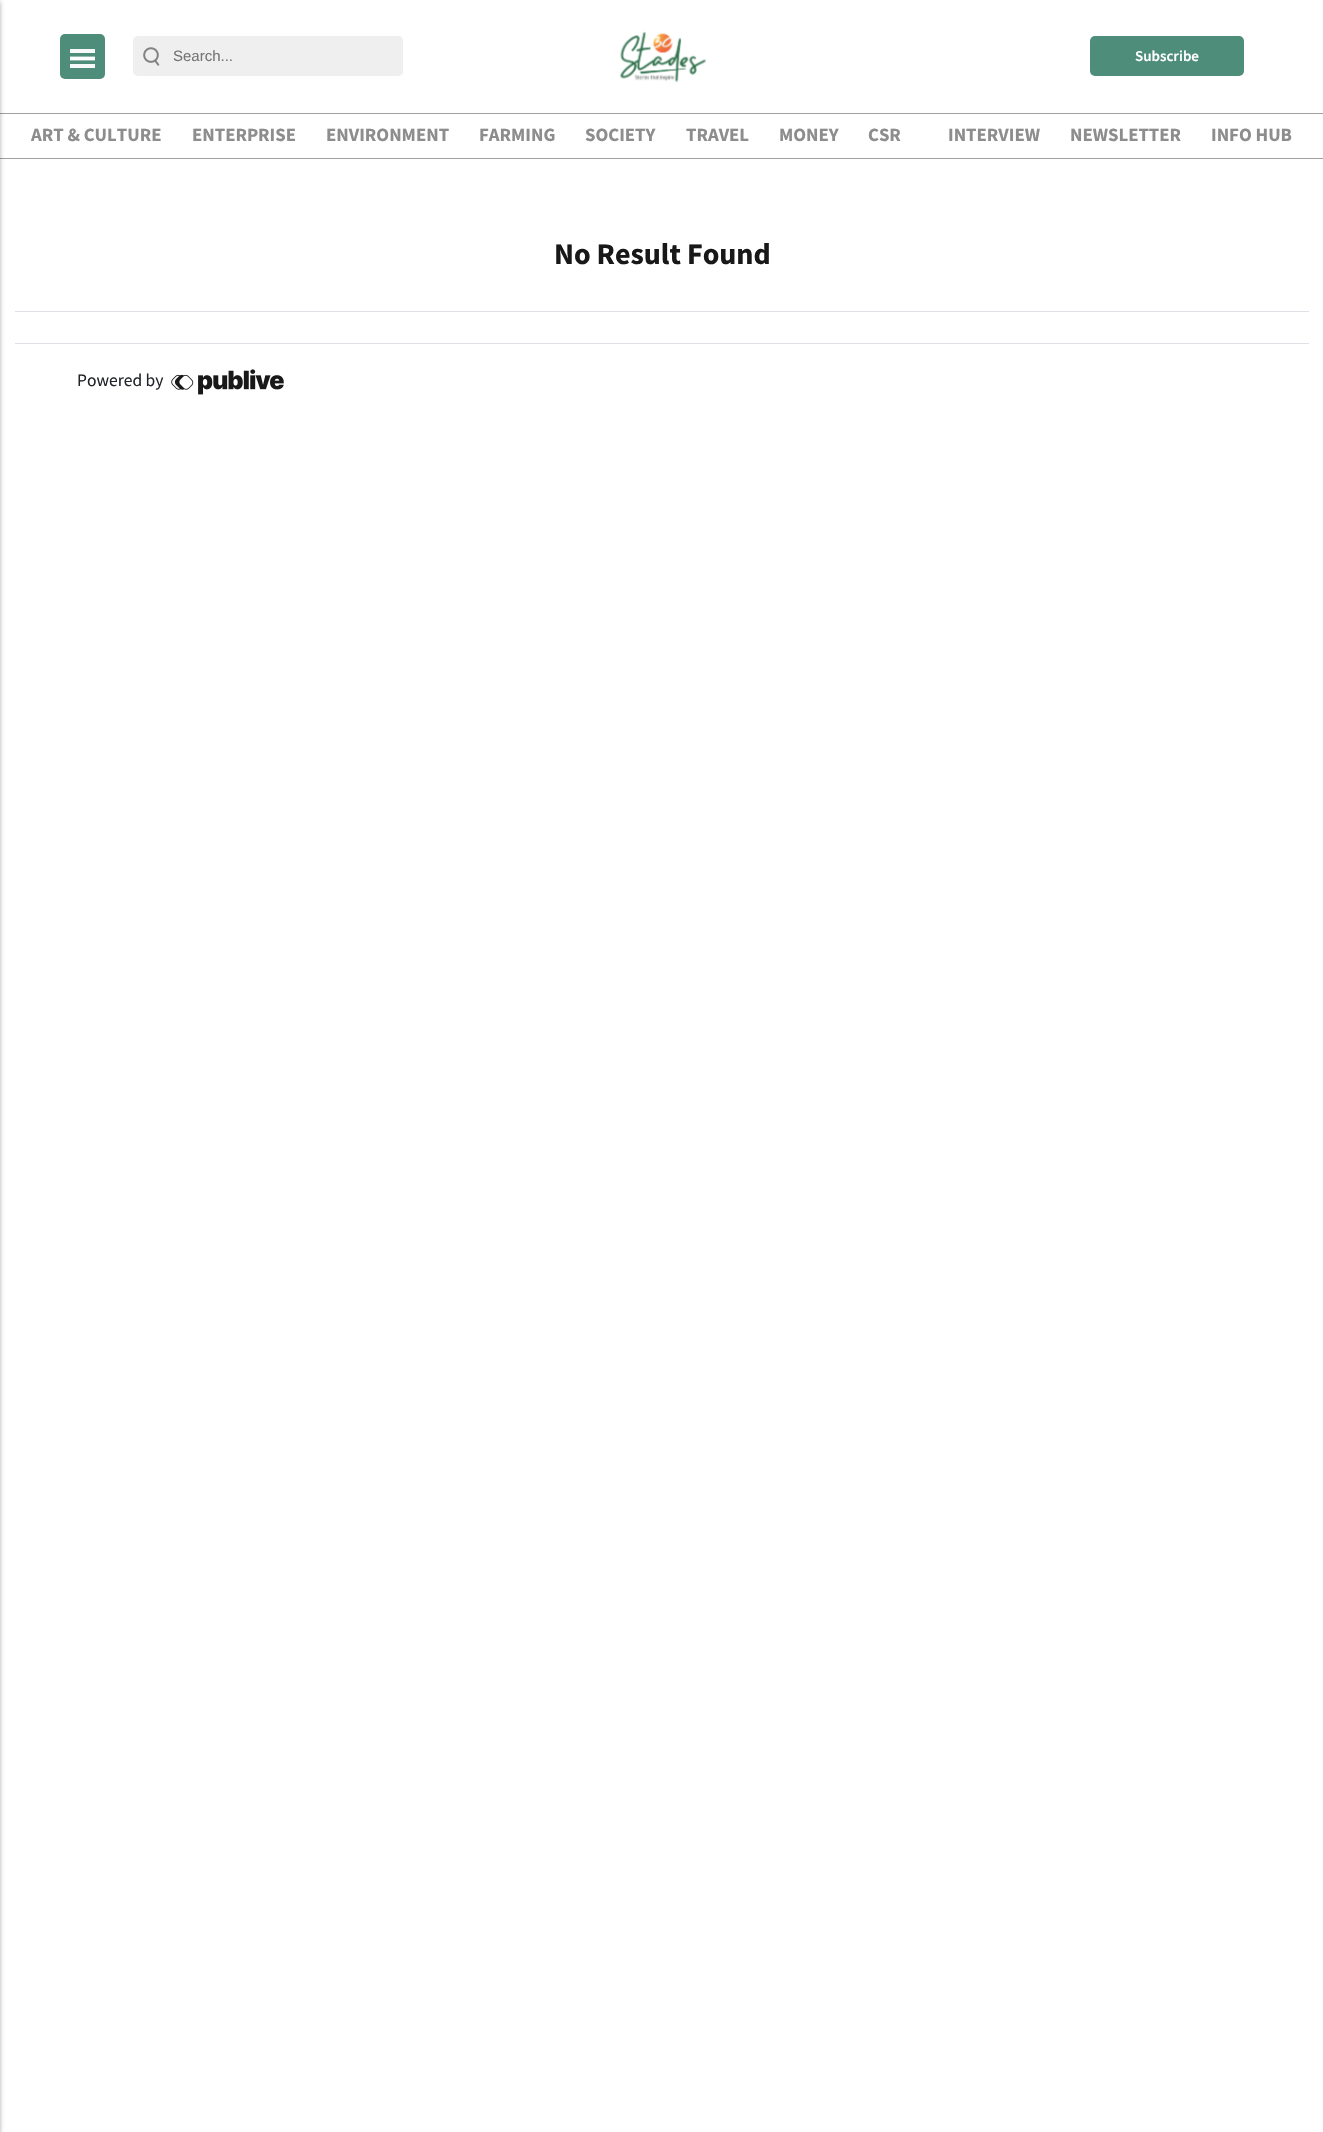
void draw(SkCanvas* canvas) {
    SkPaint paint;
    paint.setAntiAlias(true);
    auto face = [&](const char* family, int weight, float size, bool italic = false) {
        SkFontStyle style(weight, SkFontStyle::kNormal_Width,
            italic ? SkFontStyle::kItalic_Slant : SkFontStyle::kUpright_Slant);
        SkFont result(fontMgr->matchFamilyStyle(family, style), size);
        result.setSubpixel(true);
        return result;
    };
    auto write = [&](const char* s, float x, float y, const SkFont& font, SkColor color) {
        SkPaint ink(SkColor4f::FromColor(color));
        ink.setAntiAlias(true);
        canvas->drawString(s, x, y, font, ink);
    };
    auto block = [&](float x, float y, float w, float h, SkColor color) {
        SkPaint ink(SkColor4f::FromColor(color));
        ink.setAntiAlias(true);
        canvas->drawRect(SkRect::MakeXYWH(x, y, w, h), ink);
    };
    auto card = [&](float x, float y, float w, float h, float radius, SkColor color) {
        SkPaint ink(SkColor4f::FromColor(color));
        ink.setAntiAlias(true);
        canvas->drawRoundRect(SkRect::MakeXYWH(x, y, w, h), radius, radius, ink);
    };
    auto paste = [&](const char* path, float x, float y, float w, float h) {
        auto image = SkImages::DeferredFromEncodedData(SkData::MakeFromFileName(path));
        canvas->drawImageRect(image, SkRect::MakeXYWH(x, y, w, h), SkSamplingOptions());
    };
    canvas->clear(SK_ColorWHITE);
    block(0, 113, 1323, 1, SkColorSetRGB(160, 160, 160));
    block(0, 158, 1323, 1, SkColorSetRGB(160, 160, 160));
    paint.setColor(SkColorSetARGB(56, 0, 0, 0));
    paint.setMaskFilter(SkMaskFilter::MakeBlur(kNormal_SkBlurStyle, 2));
    canvas->drawRect(SkRect::MakeXYWH(-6, 3, 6, 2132), paint);
    paint.setMaskFilter(nullptr);
    paint.setColor(SkColorSetARGB(31, 0, 0, 0));
    paint.setMaskFilter(SkMaskFilter::MakeBlur(kNormal_SkBlurStyle, 2));
    canvas->drawRect(SkRect::MakeXYWH(-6, 0, 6, 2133), paint);
    paint.setMaskFilter(nullptr);
    card(60, 34, 45, 45, 5, SkColorSetRGB(77, 141, 121));
    block(70, 49, 25, 4, SkColorSetRGB(246, 249, 248));
    paint.setStyle(SkPaint::kStroke_Style);
    paint.setStrokeWidth(3.8f);
    paint.setColor(SK_ColorWHITE);
    canvas->drawPath(SkPathBuilder().moveTo(70, 58.5f).lineTo(95, 58.5f).detach(), paint);
    block(70, 64, 25, 4, SkColorSetRGB(246, 249, 248));
    card(133, 36, 270, 40, 5, SkColorSetRGB(239, 239, 239));
    paste("pic1.png", 143, 47, 17, 19);
    card(170, 36, 233, 40, 5, SkColorSetRGB(239, 239, 239));
    auto kFont1 = face("Liberation Sans", 400, 15);
    write("Search...", 173, 61, kFont1, SkColorSetRGB(117, 117, 117));
    paste("pic2.png", 619, 31, 87, 52);
    card(1090, 36, 154, 40, 5, SkColorSetRGB(77, 141, 121));
    auto kFont2 = face("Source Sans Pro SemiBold", 600, 15);
    write("Subscribe", 1135, 61, kFont2, SK_ColorWHITE);
    auto kFont3 = face("Source Sans Pro", 700, 18.75f);
    write("ART & CULTURE", 31, 141, kFont3, SkColorSetRGB(141, 141, 141));
    write("ENTERPRISE", 192, 141, kFont3, SkColorSetRGB(141, 141, 141));
    write("ENVIRONMENT", 326, 141, kFont3, SkColorSetRGB(141, 141, 141));
    write("FARMING", 479, 141, kFont3, SkColorSetRGB(141, 141, 141));
    write("SOCIETY", 585, 141, kFont3, SkColorSetRGB(141, 141, 141));
    write("TRAVEL", 686, 141, kFont3, SkColorSetRGB(141, 141, 141));
    write("MONEY", 779, 141, kFont3, SkColorSetRGB(141, 141, 141));
    write("CSR", 868, 141, kFont3, SkColorSetRGB(141, 141, 141));
    write("INTERVIEW", 948, 141, kFont3, SkColorSetRGB(141, 141, 141));
    write("NEWSLETTER", 1070, 141, kFont3, SkColorSetRGB(141, 141, 141));
    write("INFO HUB", 1211, 141, kFont3, SkColorSetRGB(141, 141, 141));
    auto kFont4 = face("Source Sans Pro", 700, 30);
    write("No Result Found", 554, 264, kFont4, SkColorSetRGB(24, 24, 24));
    block(15, 311, 1294, 1, SkColorSetRGB(222, 226, 230));
    block(15, 343, 1294, 1, SkColorSetRGB(222, 226, 230));
    auto kFont5 = face("Source Sans Pro", 400, 17.5f);
    write("Powered by", 77, 386, kFont5, SkColorSetRGB(33, 37, 41));
    paste("pic3.png", 171, 369, 113, 26);
}
